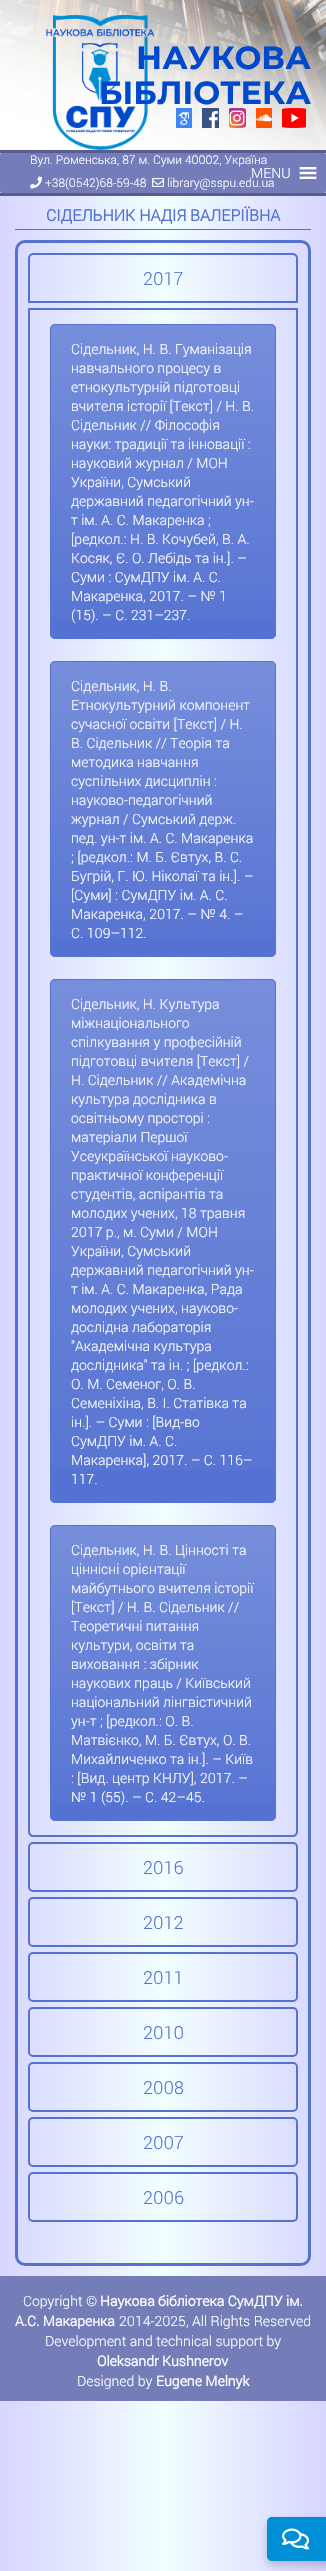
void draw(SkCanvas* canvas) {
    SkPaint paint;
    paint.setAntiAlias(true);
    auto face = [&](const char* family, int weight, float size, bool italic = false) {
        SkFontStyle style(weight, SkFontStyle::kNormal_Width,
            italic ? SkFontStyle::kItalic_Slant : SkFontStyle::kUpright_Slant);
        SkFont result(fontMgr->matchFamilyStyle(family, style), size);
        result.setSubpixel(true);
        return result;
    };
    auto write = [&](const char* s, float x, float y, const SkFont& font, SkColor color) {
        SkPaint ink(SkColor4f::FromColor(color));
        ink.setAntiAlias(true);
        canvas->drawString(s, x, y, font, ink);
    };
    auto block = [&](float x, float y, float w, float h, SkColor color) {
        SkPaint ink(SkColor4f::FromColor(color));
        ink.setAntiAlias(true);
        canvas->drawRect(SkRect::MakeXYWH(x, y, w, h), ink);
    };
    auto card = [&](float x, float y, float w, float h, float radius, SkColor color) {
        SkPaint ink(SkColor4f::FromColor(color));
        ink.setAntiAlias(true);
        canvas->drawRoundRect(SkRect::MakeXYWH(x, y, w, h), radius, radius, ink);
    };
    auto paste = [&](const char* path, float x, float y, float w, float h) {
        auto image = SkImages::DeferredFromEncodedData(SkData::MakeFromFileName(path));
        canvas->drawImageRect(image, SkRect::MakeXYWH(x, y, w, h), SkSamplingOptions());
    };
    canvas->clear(SK_ColorWHITE);
    {
        const SkColor colors[] = {SkColorSetRGB(215, 214, 255), SkColorSetRGB(242, 254, 255), SkColorSetRGB(215, 214, 255)};
        const float stops[] = {0, 0.5f, 1};
        const SkPoint ends[] = {{0, 1286}, {326, 1286}};
        paint.setShader(SkGradientShader::MakeLinear(ends, colors, stops, 3, SkTileMode::kClamp));
        paint.setAlpha(255);
    }
    canvas->drawRect(SkRect::MakeXYWH(0, 153, 326, 2418), paint);
    paste("pic1.png", 0, 0, 326, 150);
    paste("pic2.png", 45, 15, 110, 135);
    auto kFont1 = face("Montserrat", 700, 32);
    write("НАУКОВА", 136, 69, kFont1, SkColorSetRGB(0, 73, 204));
    write("БІБЛІОТЕКА", 99, 104, kFont1, SkColorSetRGB(0, 73, 204));
    paste("pic3.png", 176, 108, 16, 20);
    paste("pic4.png", 202, 108, 17, 20);
    paste("pic5.png", 229, 108, 17, 20);
    paste("pic6.png", 256, 108, 16, 20);
    paste("pic7.png", 282, 108, 24, 20);
    card(0, 153, 326, 40, 2, SkColorSetRGB(116, 125, 185));
    auto kFont2 = face("Roboto", 300, 12);
    write("Вул. Роменська, 87 м. Суми 40002, Україна", 30, 164, kFont2, SK_ColorWHITE);
    paste("pic8.png", 30, 176, 12, 13);
    write("+38(0542)68-59-48", 45, 187, kFont2, SK_ColorWHITE);
    paste("pic9.png", 152, 178, 12, 9);
    write("library@sspu.edu.ua", 167, 187, kFont2, SK_ColorWHITE);
    block(0, 150, 326, 3, SkColorSetRGB(87, 94, 143));
    block(0, 193, 326, 3, SkColorSetRGB(87, 94, 143));
    auto kFont3 = face("Roboto", 300, 14);
    write("MENU", 251, 178, kFont3, SK_ColorWHITE);
    paste("pic10.png", 299, 167, 18, 12);
    block(15, 229, 296, 1, SkColorSetRGB(84, 114, 210));
    auto kFont4 = face("Roboto", 700, 16);
    write("СІДЕЛЬНИК НАДІЯ ВАЛЕРІЇВНА", 46, 221, kFont4, SkColorSetRGB(84, 114, 210));
    paint.setStyle(SkPaint::kStroke_Style);
    paint.setStrokeWidth(3);
    paint.setShader(nullptr);
    paint.setColor(SkColorSetRGB(84, 114, 210));
    canvas->drawRoundRect(SkRect::MakeXYWH(16.5f, 241.5f, 293, 2023), 8.5f, 8.5f, paint);
    paint.setStrokeWidth(2);
    canvas->drawPath(SkPathBuilder().moveTo(33, 254).lineTo(293, 254).cubicTo(295, 254, 297, 256, 297, 258).lineTo(297, 302).lineTo(29, 302).lineTo(29, 258).cubicTo(29, 256, 31, 254, 33, 254).close().detach(), paint);
    auto kFont5 = face("Roboto", 300, 18);
    write("2017", 143, 285, kFont5, SkColorSetRGB(84, 114, 210));
    canvas->drawPath(SkPathBuilder().moveTo(29, 309).lineTo(297, 309).lineTo(297, 1832).cubicTo(297, 1834, 295, 1836, 293, 1836).lineTo(33, 1836).cubicTo(31, 1836, 29, 1834, 29, 1832).close().detach(), paint);
    card(50, 324, 226, 315, 5, SkColorSetRGB(84, 114, 210));
    canvas->save();
    canvas->clipPath(SkPathBuilder().moveTo(55, 324).lineTo(271, 324).cubicTo(274, 324, 276, 326, 276, 329).lineTo(276, 634).cubicTo(276, 637, 274, 639, 271, 639).lineTo(55, 639).cubicTo(52, 639, 50, 637, 50, 634).lineTo(50, 329).cubicTo(50, 326, 52, 324, 55, 324).close().detach(), true);
    paint.setStyle(SkPaint::kFill_Style);
    {
        const SkColor colors[] = {SkColorSetARGB(51, 255, 255, 255), SkColorSetARGB(3, 255, 255, 255)};
        const float stops[] = {0, 1};
        const SkPoint ends[] = {{163, 325}, {163, 638}};
        paint.setShader(SkGradientShader::MakeLinear(ends, colors, stops, 2, SkTileMode::kClamp));
        paint.setAlpha(255);
    }
    canvas->drawRect(SkRect::MakeXYWH(50, 325, 226, 294), paint);
    canvas->restore();
    paint.setStyle(SkPaint::kStroke_Style);
    paint.setStrokeWidth(1);
    paint.setShader(nullptr);
    paint.setColor(SkColorSetRGB(84, 114, 210));
    canvas->drawRoundRect(SkRect::MakeXYWH(50.5f, 324.5f, 225, 314), 4.5f, 4.5f, paint);
    write("Сідельник, Н. В. Гуманізація", 71, 354, kFont3, SK_ColorWHITE);
    write("навчального процесу в", 71, 373, kFont3, SK_ColorWHITE);
    write("етнокультурній підготовці", 71, 392, kFont3, SK_ColorWHITE);
    write("вчителя історії [Текст] / Н. В.", 71, 411, kFont3, SK_ColorWHITE);
    write("Сідельник // Філософія", 71, 430, kFont3, SK_ColorWHITE);
    write("науки: традиції та інновації :", 71, 449, kFont3, SK_ColorWHITE);
    write("науковий журнал / МОН", 71, 468, kFont3, SK_ColorWHITE);
    write("України, Сумський", 71, 487, kFont3, SK_ColorWHITE);
    write("державний педагогічний ун-", 71, 506, kFont3, SK_ColorWHITE);
    write("т ім. А. С. Макаренка ;", 71, 525, kFont3, SK_ColorWHITE);
    write("[редкол.: Н. В. Кочубей, В. А.", 71, 544, kFont3, SK_ColorWHITE);
    write("Косяк, Є. О. Лебідь та ін.]. –", 71, 563, kFont3, SK_ColorWHITE);
    write("Суми : СумДПУ ім. А. С.", 71, 582, kFont3, SK_ColorWHITE);
    write("Макаренка, 2017. – № 1", 71, 601, kFont3, SK_ColorWHITE);
    write("(15). – С. 231–237.", 71, 620, kFont3, SK_ColorWHITE);
    card(50, 661, 226, 296, 5, SkColorSetRGB(84, 114, 210));
    canvas->save();
    canvas->clipPath(SkPathBuilder().moveTo(55, 661).lineTo(271, 661).cubicTo(274, 661, 276, 663, 276, 666).lineTo(276, 952).cubicTo(276, 955, 274, 957, 271, 957).lineTo(55, 957).cubicTo(52, 957, 50, 955, 50, 952).lineTo(50, 666).cubicTo(50, 663, 52, 661, 55, 661).close().detach(), true);
    paint.setStyle(SkPaint::kFill_Style);
    {
        const SkColor colors[] = {SkColorSetARGB(51, 255, 255, 255), SkColorSetARGB(3, 255, 255, 255)};
        const float stops[] = {0, 1};
        const SkPoint ends[] = {{163, 662}, {163, 956}};
        paint.setShader(SkGradientShader::MakeLinear(ends, colors, stops, 2, SkTileMode::kClamp));
        paint.setAlpha(255);
    }
    canvas->drawRect(SkRect::MakeXYWH(50, 662, 226, 276), paint);
    canvas->restore();
    paint.setStyle(SkPaint::kStroke_Style);
    paint.setShader(nullptr);
    paint.setColor(SkColorSetRGB(84, 114, 210));
    canvas->drawRoundRect(SkRect::MakeXYWH(50.5f, 661.5f, 225, 295), 4.5f, 4.5f, paint);
    write("Сідельник, Н. В.", 71, 691, kFont3, SK_ColorWHITE);
    write("Етнокультурний компонент", 71, 710, kFont3, SK_ColorWHITE);
    write("сучасної освіти [Текст] / Н.", 71, 729, kFont3, SK_ColorWHITE);
    write("В. Сідельник // Теорія та", 71, 748, kFont3, SK_ColorWHITE);
    write("методика навчання", 71, 767, kFont3, SK_ColorWHITE);
    write("суспільних дисциплін :", 71, 786, kFont3, SK_ColorWHITE);
    write("науково-педагогічний", 71, 805, kFont3, SK_ColorWHITE);
    write("журнал / Сумський держ.", 71, 824, kFont3, SK_ColorWHITE);
    write("пед. ун-т ім. А. С. Макаренка", 71, 843, kFont3, SK_ColorWHITE);
    write("; [редкол.: М. Б. Євтух, В. С.", 71, 862, kFont3, SK_ColorWHITE);
    write("Бугрій, Г. Ю. Ніколаї та ін.]. –", 71, 881, kFont3, SK_ColorWHITE);
    write("[Суми] : СумДПУ ім. А. С.", 71, 900, kFont3, SK_ColorWHITE);
    write("Макаренка, 2017. – № 4. –", 71, 919, kFont3, SK_ColorWHITE);
    write("С. 109–112.", 71, 938, kFont3, SK_ColorWHITE);
    card(50, 979, 226, 524, 5, SkColorSetRGB(84, 114, 210));
    canvas->save();
    canvas->clipPath(SkPathBuilder().moveTo(55, 979).lineTo(271, 979).cubicTo(274, 979, 276, 981, 276, 984).lineTo(276, 1498).cubicTo(276, 1501, 274, 1503, 271, 1503).lineTo(55, 1503).cubicTo(52, 1503, 50, 1501, 50, 1498).lineTo(50, 984).cubicTo(50, 981, 52, 979, 55, 979).close().detach(), true);
    paint.setStyle(SkPaint::kFill_Style);
    {
        const SkColor colors[] = {SkColorSetARGB(51, 255, 255, 255), SkColorSetARGB(3, 255, 255, 255)};
        const float stops[] = {0, 1};
        const SkPoint ends[] = {{163, 980}, {163, 1502}};
        paint.setShader(SkGradientShader::MakeLinear(ends, colors, stops, 2, SkTileMode::kClamp));
        paint.setAlpha(255);
    }
    canvas->drawRect(SkRect::MakeXYWH(50, 980, 226, 490), paint);
    canvas->restore();
    paint.setStyle(SkPaint::kStroke_Style);
    paint.setShader(nullptr);
    paint.setColor(SkColorSetRGB(84, 114, 210));
    canvas->drawRoundRect(SkRect::MakeXYWH(50.5f, 979.5f, 225, 523), 4.5f, 4.5f, paint);
    write("Сідельник, Н. Культура", 71, 1009, kFont3, SK_ColorWHITE);
    write("міжнаціонального", 71, 1028, kFont3, SK_ColorWHITE);
    write("спілкування у професійній", 71, 1047, kFont3, SK_ColorWHITE);
    write("підготовці вчителя [Текст] /", 71, 1066, kFont3, SK_ColorWHITE);
    write("Н. Сідельник // Академічна", 71, 1085, kFont3, SK_ColorWHITE);
    write("культура дослідника в", 71, 1104, kFont3, SK_ColorWHITE);
    write("освітньому просторі :", 71, 1123, kFont3, SK_ColorWHITE);
    write("матеріали Першої", 71, 1142, kFont3, SK_ColorWHITE);
    write("Усеукраїнської науково-", 71, 1161, kFont3, SK_ColorWHITE);
    write("практичної конференції", 71, 1180, kFont3, SK_ColorWHITE);
    write("студентів, аспірантів та", 71, 1199, kFont3, SK_ColorWHITE);
    write("молодих учених, 18 травня", 71, 1218, kFont3, SK_ColorWHITE);
    write("2017 р., м. Суми / МОН", 71, 1237, kFont3, SK_ColorWHITE);
    write("України, Сумський", 71, 1256, kFont3, SK_ColorWHITE);
    write("державний педагогічний ун-", 71, 1275, kFont3, SK_ColorWHITE);
    write("т ім. А. С. Макаренка, Рада", 71, 1294, kFont3, SK_ColorWHITE);
    write("молодих учених, науково-", 71, 1313, kFont3, SK_ColorWHITE);
    write("дослідна лабораторія", 71, 1332, kFont3, SK_ColorWHITE);
    write("\"Академічна культура", 71, 1351, kFont3, SK_ColorWHITE);
    write("дослідника\" та ін. ; [редкол.:", 71, 1370, kFont3, SK_ColorWHITE);
    write("О. М. Семеног, О. В.", 71, 1389, kFont3, SK_ColorWHITE);
    write("Семеніхіна, В. І. Статівка та", 71, 1408, kFont3, SK_ColorWHITE);
    write("ін.]. – Суми : [Вид-во", 71, 1427, kFont3, SK_ColorWHITE);
    write("СумДПУ ім. А. С.", 71, 1446, kFont3, SK_ColorWHITE);
    write("Макаренка], 2017. – С. 116–", 71, 1465, kFont3, SK_ColorWHITE);
    write("117.", 71, 1484, kFont3, SK_ColorWHITE);
    card(50, 1525, 226, 296, 5, SkColorSetRGB(84, 114, 210));
    canvas->save();
    canvas->clipPath(SkPathBuilder().moveTo(55, 1525).lineTo(271, 1525).cubicTo(274, 1525, 276, 1527, 276, 1530).lineTo(276, 1816).cubicTo(276, 1819, 274, 1821, 271, 1821).lineTo(55, 1821).cubicTo(52, 1821, 50, 1819, 50, 1816).lineTo(50, 1530).cubicTo(50, 1527, 52, 1525, 55, 1525).close().detach(), true);
    paint.setStyle(SkPaint::kFill_Style);
    {
        const SkColor colors[] = {SkColorSetARGB(51, 255, 255, 255), SkColorSetARGB(3, 255, 255, 255)};
        const float stops[] = {0, 1};
        const SkPoint ends[] = {{163, 1526}, {163, 1820}};
        paint.setShader(SkGradientShader::MakeLinear(ends, colors, stops, 2, SkTileMode::kClamp));
        paint.setAlpha(255);
    }
    canvas->drawRect(SkRect::MakeXYWH(50, 1526, 226, 276), paint);
    canvas->restore();
    paint.setStyle(SkPaint::kStroke_Style);
    paint.setShader(nullptr);
    paint.setColor(SkColorSetRGB(84, 114, 210));
    canvas->drawRoundRect(SkRect::MakeXYWH(50.5f, 1525.5f, 225, 295), 4.5f, 4.5f, paint);
    write("Сідельник, Н. В. Цінності та", 71, 1555, kFont3, SK_ColorWHITE);
    write("ціннісні орієнтації", 71, 1574, kFont3, SK_ColorWHITE);
    write("майбутнього вчителя історії", 71, 1593, kFont3, SK_ColorWHITE);
    write("[Текст] / Н. В. Сідельник //", 71, 1612, kFont3, SK_ColorWHITE);
    write("Теоретичні питання", 71, 1631, kFont3, SK_ColorWHITE);
    write("культури, освіти та", 71, 1650, kFont3, SK_ColorWHITE);
    write("виховання : збірник", 71, 1669, kFont3, SK_ColorWHITE);
    write("наукових праць / Київський", 71, 1688, kFont3, SK_ColorWHITE);
    write("національний лінгвістичний", 71, 1707, kFont3, SK_ColorWHITE);
    write("ун-т ; [редкол.: О. В.", 71, 1726, kFont3, SK_ColorWHITE);
    write("Матвієнко, М. Б. Євтух, О. В.", 71, 1745, kFont3, SK_ColorWHITE);
    write("Михайличенко та ін.]. – Київ", 71, 1764, kFont3, SK_ColorWHITE);
    write(": [Вид. центр КНЛУ], 2017. –", 71, 1783, kFont3, SK_ColorWHITE);
    write("№ 1 (55). – С. 42–45.", 71, 1802, kFont3, SK_ColorWHITE);
    paint.setStrokeWidth(2);
    canvas->drawRoundRect(SkRect::MakeXYWH(29, 1843, 268, 48), 4, 4, paint);
    write("2016", 143, 1874, kFont5, SkColorSetRGB(84, 114, 210));
    canvas->drawRoundRect(SkRect::MakeXYWH(29, 1898, 268, 48), 4, 4, paint);
    write("2012", 143, 1929, kFont5, SkColorSetRGB(84, 114, 210));
    canvas->drawRoundRect(SkRect::MakeXYWH(29, 1953, 268, 48), 4, 4, paint);
    write("2011", 143, 1984, kFont5, SkColorSetRGB(84, 114, 210));
    canvas->drawRoundRect(SkRect::MakeXYWH(29, 2008, 268, 48), 4, 4, paint);
    write("2010", 143, 2039, kFont5, SkColorSetRGB(84, 114, 210));
    canvas->drawRoundRect(SkRect::MakeXYWH(29, 2063, 268, 48), 4, 4, paint);
    write("2008", 143, 2094, kFont5, SkColorSetRGB(84, 114, 210));
    canvas->drawRoundRect(SkRect::MakeXYWH(29, 2118, 268, 48), 4, 4, paint);
    write("2007", 143, 2149, kFont5, SkColorSetRGB(84, 114, 210));
    canvas->drawRoundRect(SkRect::MakeXYWH(29, 2173, 268, 48), 4, 4, paint);
    write("2006", 143, 2204, kFont5, SkColorSetRGB(84, 114, 210));
    block(0, 2276, 326, 125, SkColorSetRGB(117, 125, 185));
    write("Copyright ©", 23, 2306, kFont3, SK_ColorWHITE);
    auto kFont6 = face("Roboto", 700, 14);
    write("Наукова бібліотека СумДПУ ім.", 100, 2306, kFont6, SK_ColorWHITE);
    write("А.С. Макаренка", 15, 2326, kFont6, SK_ColorWHITE);
    write("2014-2025, All Rights Reserved", 119, 2326, kFont3, SK_ColorWHITE);
    write("Development and technical support by", 45, 2346, kFont3, SK_ColorWHITE);
    write("Oleksandr Kushnerov", 97, 2366, kFont6, SK_ColorWHITE);
    write("Designed by", 77, 2386, kFont3, SK_ColorWHITE);
    write("Eugene Melnyk", 156, 2386, kFont6, SK_ColorWHITE);
    paint.setStyle(SkPaint::kFill_Style);
    paint.setColor(SkColorSetARGB(51, 0, 0, 0));
    paint.setMaskFilter(SkMaskFilter::MakeBlur(kNormal_SkBlurStyle, 4));
    canvas->drawRoundRect(SkRect::MakeXYWH(267, 2521, 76, 44), 5, 5, paint);
    paint.setMaskFilter(nullptr);
    paint.setColor(SkColorSetRGB(0, 143, 215));
    canvas->drawPath(SkPathBuilder().moveTo(272, 2517).lineTo(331, 2517).lineTo(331, 2561).lineTo(272, 2561).cubicTo(269, 2561, 267, 2559, 267, 2556).lineTo(267, 2522).cubicTo(267, 2519, 269, 2517, 272, 2517).close().detach(), paint);
    paste("pic11.png", 282, 2528, 27, 22);
}
